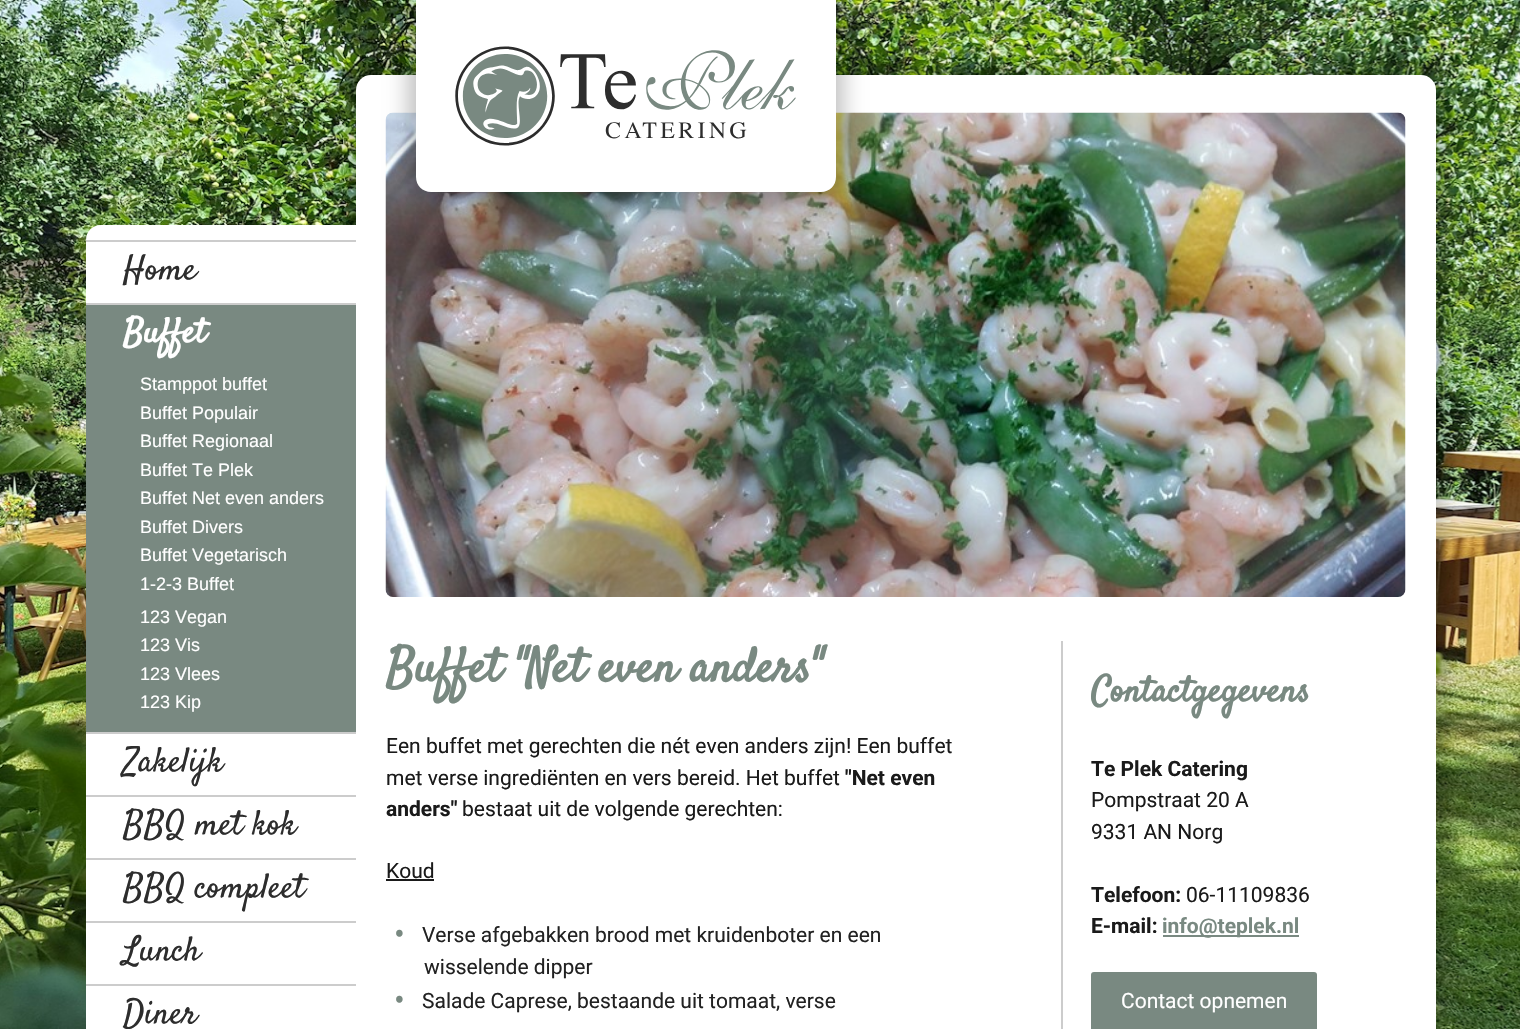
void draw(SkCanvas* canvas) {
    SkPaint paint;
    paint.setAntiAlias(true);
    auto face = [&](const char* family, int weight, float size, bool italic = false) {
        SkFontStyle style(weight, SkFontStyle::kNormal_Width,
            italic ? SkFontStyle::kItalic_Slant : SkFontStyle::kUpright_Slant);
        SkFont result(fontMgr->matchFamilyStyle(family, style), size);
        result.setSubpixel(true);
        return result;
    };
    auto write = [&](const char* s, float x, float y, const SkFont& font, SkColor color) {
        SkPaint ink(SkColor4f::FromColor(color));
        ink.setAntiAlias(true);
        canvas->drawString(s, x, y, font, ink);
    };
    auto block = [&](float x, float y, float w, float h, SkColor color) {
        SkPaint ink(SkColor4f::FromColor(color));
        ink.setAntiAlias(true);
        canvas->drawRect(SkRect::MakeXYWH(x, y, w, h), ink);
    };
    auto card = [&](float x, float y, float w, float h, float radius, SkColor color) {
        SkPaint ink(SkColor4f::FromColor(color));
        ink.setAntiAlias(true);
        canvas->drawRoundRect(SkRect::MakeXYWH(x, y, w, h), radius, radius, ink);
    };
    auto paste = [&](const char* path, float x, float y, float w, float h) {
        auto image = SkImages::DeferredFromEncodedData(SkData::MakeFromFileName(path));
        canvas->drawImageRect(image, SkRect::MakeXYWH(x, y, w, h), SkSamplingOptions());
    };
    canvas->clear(SK_ColorWHITE);
    paste("pic1.png", 0, 0, 1520, 1029);
    paint.setColor(SkColorSetARGB(64, 0, 0, 0));
    paint.setMaskFilter(SkMaskFilter::MakeBlur(kNormal_SkBlurStyle, 11));
    canvas->drawRoundRect(SkRect::MakeXYWH(348, 68, 1095, 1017), 23, 23, paint);
    paint.setMaskFilter(nullptr);
    card(356, 75, 1080, 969, 15, SK_ColorWHITE);
    paste("pic3.png", 385, 112, 1021, 485);
    paint.setMaskFilter(SkMaskFilter::MakeBlur(kNormal_SkBlurStyle, 11));
    canvas->drawRoundRect(SkRect::MakeXYWH(408, -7, 435, 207), 23, 23, paint);
    paint.setMaskFilter(nullptr);
    paint.setColor(SK_ColorWHITE);
    canvas->drawPath(SkPathBuilder().moveTo(416, 0).lineTo(836, 0).lineTo(836, 177).cubicTo(836, 185.5f, 829.5f, 192, 821, 192).lineTo(431, 192).cubicTo(422.5f, 192, 416, 185.5f, 416, 177).close().detach(), paint);
    paste("pic2.png", 455, 46, 341, 100);
    canvas->drawPath(SkPathBuilder().moveTo(101, 225).lineTo(356, 225).lineTo(356, 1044).lineTo(101, 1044).cubicTo(92.5f, 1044, 86, 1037.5f, 86, 1029).lineTo(86, 240).cubicTo(86, 231.5f, 92.5f, 225, 101, 225).close().detach(), paint);
    block(86, 240, 270, 2, SkColorSetRGB(204, 204, 204));
    block(86, 303, 270, 2, SkColorSetRGB(204, 204, 204));
    auto kFont1 = face("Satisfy", 400, 34.5f);
    write("Home", 123, 279, kFont1, SkColorSetRGB(45, 45, 45));
    block(86, 305, 270, 427, SkColorSetRGB(121, 137, 129));
    block(86, 732, 270, 2, SkColorSetRGB(204, 204, 204));
    auto kFont2 = face("Satisfy", 700, 34.5f);
    write("Buffet", 123, 342, kFont2, SK_ColorWHITE);
    auto kFont3 = face("Liberation Sans", 400, 18);
    write("Stamppot buffet", 140, 390, kFont3, SK_ColorWHITE);
    write("Buffet Populair", 140, 419, kFont3, SK_ColorWHITE);
    write("Buffet Regionaal", 140, 447, kFont3, SK_ColorWHITE);
    write("Buffet Te Plek", 140, 476, kFont3, SK_ColorWHITE);
    write("Buffet Net even anders", 140, 504, kFont3, SK_ColorWHITE);
    write("Buffet Divers", 140, 533, kFont3, SK_ColorWHITE);
    write("Buffet Vegetarisch", 140, 561, kFont3, SK_ColorWHITE);
    write("1-2-3 Buffet", 140, 590, kFont3, SK_ColorWHITE);
    write("123 Vegan", 140, 623, kFont3, SK_ColorWHITE);
    write("123 Vis", 140, 651, kFont3, SK_ColorWHITE);
    write("123 Vlees", 140, 680, kFont3, SK_ColorWHITE);
    write("123 Kip", 140, 708, kFont3, SK_ColorWHITE);
    block(86, 795, 270, 2, SkColorSetRGB(204, 204, 204));
    write("Zakelijk", 123, 771, kFont1, SkColorSetRGB(45, 45, 45));
    block(86, 858, 270, 2, SkColorSetRGB(204, 204, 204));
    write("BBQ met kok", 123, 834, kFont1, SkColorSetRGB(45, 45, 45));
    block(86, 921, 270, 2, SkColorSetRGB(204, 204, 204));
    write("BBQ compleet", 123, 897, kFont1, SkColorSetRGB(45, 45, 45));
    block(86, 984, 270, 2, SkColorSetRGB(204, 204, 204));
    write("Lunch", 123, 960, kFont1, SkColorSetRGB(45, 45, 45));
    write("Diner", 123, 1023, kFont1, SkColorSetRGB(45, 45, 45));
    block(1061, 641, 2, 388, SkColorSetRGB(204, 204, 204));
    auto kFont4 = face("Satisfy", 700, 48);
    write("Buffet \"Net even anders\"", 386, 681, kFont4, SkColorSetRGB(121, 137, 129));
    auto kFont5 = face("Roboto", 400, 21);
    write("Een buffet met gerechten die nét even anders zijn! Een buffet", 386, 753, kFont5, SkColorSetRGB(26, 26, 26));
    write("met verse ingrediënten en vers bereid. Het buffet", 386, 785, kFont5, SkColorSetRGB(26, 26, 26));
    auto kFont6 = face("Roboto", 700, 21);
    write("\"Net even", 845, 785, kFont6, SkColorSetRGB(26, 26, 26));
    write("anders\"", 386, 816, kFont6, SkColorSetRGB(26, 26, 26));
    write("bestaat uit de volgende gerechten:", 462, 816, kFont5, SkColorSetRGB(26, 26, 26));
    write("Koud", 386, 878, kFont5, SkColorSetRGB(26, 26, 26));
    block(386, 879, 48, 2, SkColorSetRGB(26, 26, 26));
    auto kFont7 = face("Roboto", 400, 32);
    write("•", 394, 945, kFont7, SkColorSetRGB(121, 137, 129));
    write("Verse afgebakken brood met kruidenboter en een", 422, 942, kFont5, SkColorSetRGB(34, 34, 34));
    write("wisselende dipper", 424, 974, kFont5, SkColorSetRGB(34, 34, 34));
    write("•", 394, 1011, kFont7, SkColorSetRGB(121, 137, 129));
    write("Salade Caprese, bestaande uit tomaat, verse", 422, 1008, kFont5, SkColorSetRGB(34, 34, 34));
    auto kFont8 = face("Satisfy", 700, 36);
    write("Contactgegevens", 1091, 701, kFont8, SkColorSetRGB(121, 137, 129));
    write("Te Plek Catering", 1091, 776, kFont6, SkColorSetRGB(26, 26, 26));
    write("Pompstraat 20 A", 1091, 807, kFont5, SkColorSetRGB(26, 26, 26));
    write("9331 AN Norg", 1091, 839, kFont5, SkColorSetRGB(26, 26, 26));
    write("Telefoon:", 1091, 902, kFont6, SkColorSetRGB(26, 26, 26));
    write("06-11109836", 1186, 902, kFont5, SkColorSetRGB(26, 26, 26));
    write("E-mail:", 1091, 933, kFont6, SkColorSetRGB(26, 26, 26));
    block(1163, 935, 136, 2, SkColorSetRGB(121, 137, 129));
    write("info@teplek.nl", 1162, 933, kFont6, SkColorSetRGB(121, 137, 129));
    card(1091, 972, 226, 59, 3, SkColorSetRGB(121, 137, 129));
    write("Contact opnemen", 1121, 1008, kFont5, SK_ColorWHITE);
}
